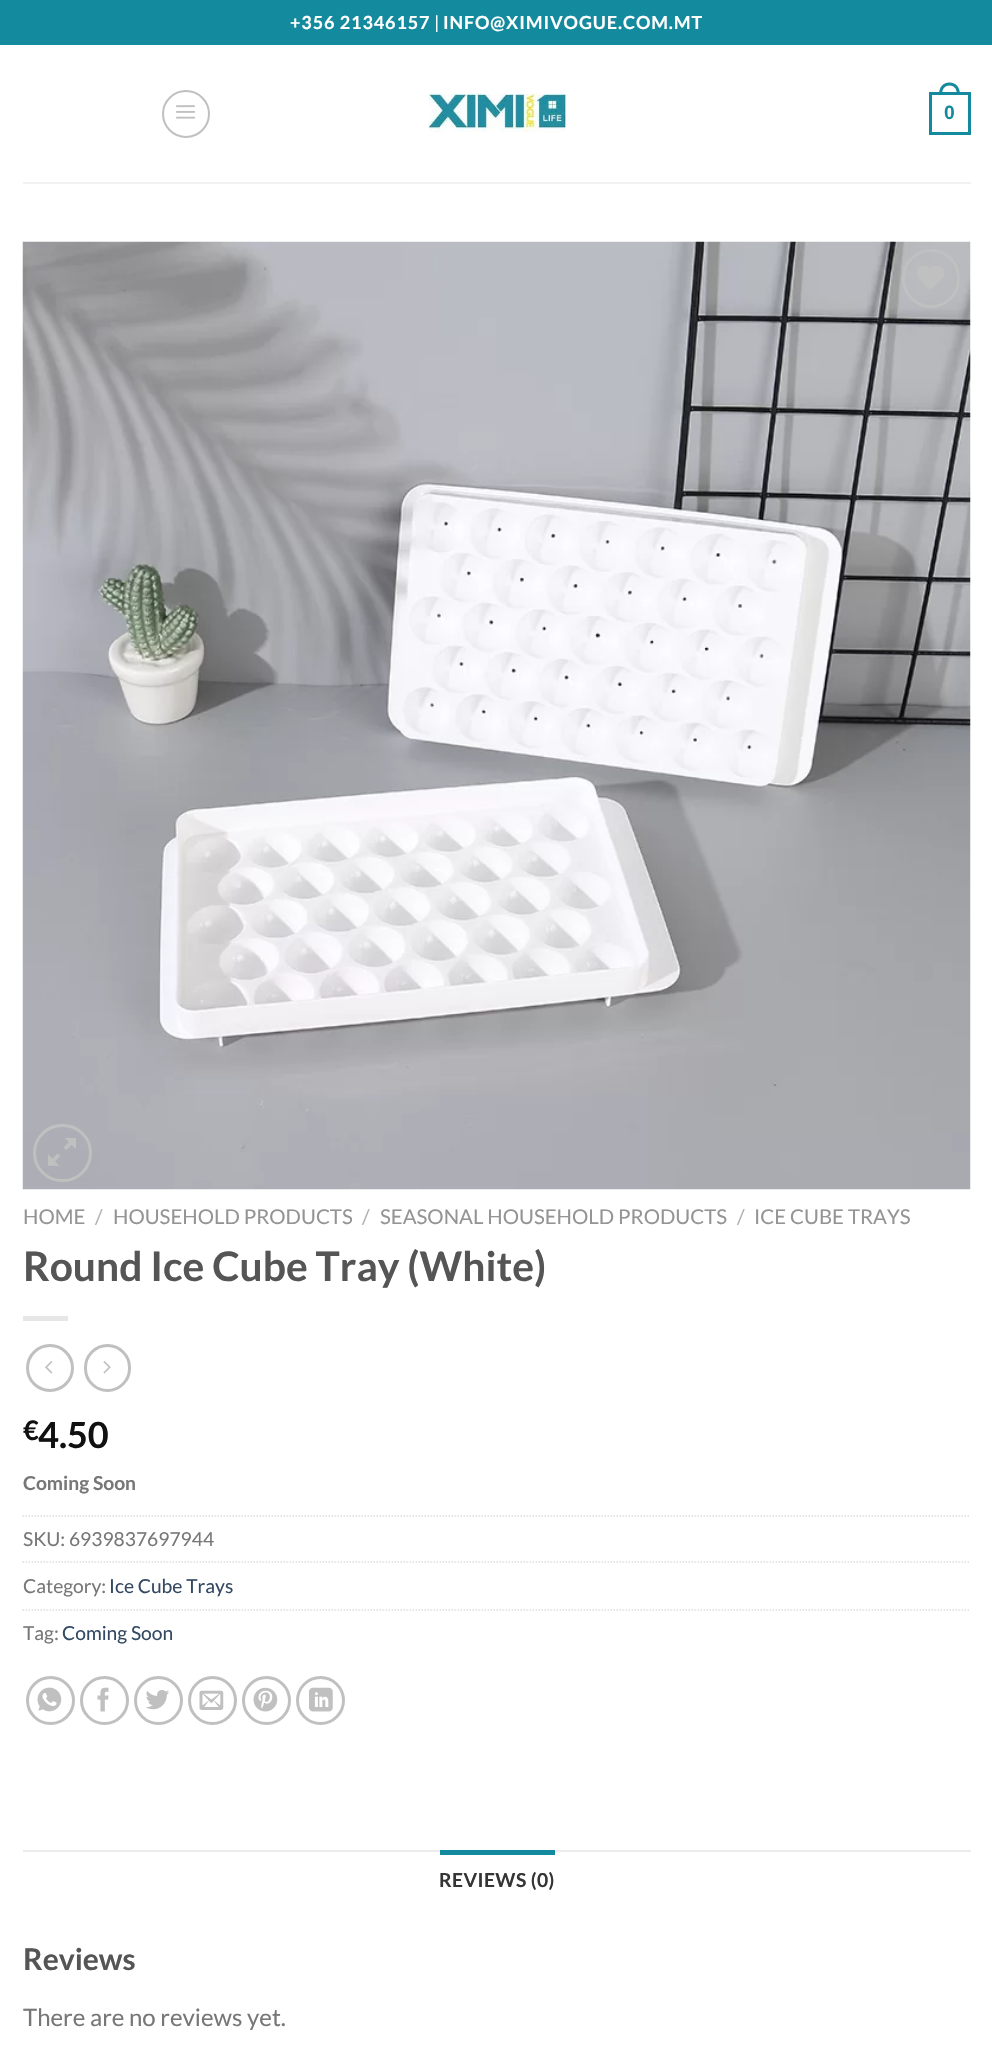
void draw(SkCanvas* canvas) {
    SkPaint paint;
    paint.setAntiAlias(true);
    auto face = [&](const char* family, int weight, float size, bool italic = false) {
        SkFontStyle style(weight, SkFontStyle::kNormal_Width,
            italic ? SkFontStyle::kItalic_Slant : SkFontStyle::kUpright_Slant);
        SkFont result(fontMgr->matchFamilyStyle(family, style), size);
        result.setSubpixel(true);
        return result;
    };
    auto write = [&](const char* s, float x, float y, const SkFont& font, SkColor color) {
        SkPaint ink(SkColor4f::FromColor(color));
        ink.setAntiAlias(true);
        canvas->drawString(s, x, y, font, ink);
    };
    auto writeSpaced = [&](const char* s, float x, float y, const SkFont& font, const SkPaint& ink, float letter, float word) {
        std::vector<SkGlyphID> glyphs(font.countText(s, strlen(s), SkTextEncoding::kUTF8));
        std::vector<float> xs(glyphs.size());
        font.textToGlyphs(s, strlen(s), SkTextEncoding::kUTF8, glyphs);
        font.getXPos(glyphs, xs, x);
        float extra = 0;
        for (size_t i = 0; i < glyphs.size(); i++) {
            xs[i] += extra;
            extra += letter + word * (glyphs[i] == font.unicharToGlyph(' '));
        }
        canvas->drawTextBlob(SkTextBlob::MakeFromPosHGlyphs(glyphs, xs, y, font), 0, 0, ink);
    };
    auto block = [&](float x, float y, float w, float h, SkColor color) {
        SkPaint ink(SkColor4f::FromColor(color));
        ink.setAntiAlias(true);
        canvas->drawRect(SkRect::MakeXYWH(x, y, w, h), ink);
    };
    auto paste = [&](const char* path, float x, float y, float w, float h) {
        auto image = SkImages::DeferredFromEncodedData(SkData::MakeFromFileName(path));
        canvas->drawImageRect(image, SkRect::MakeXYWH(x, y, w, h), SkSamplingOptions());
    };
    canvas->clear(SK_ColorWHITE);
    block(0, 0, 992, 45, SkColorSetRGB(19, 138, 157));
    auto kFont1 = face("Lato", 700, 18);
    paint.setColor(SK_ColorWHITE);
    writeSpaced("+356 21346157", 290, 29, kFont1, paint, 0.9f, 0);
    auto kFont2 = face("Lato", 400, 18);
    write("|", 434, 29, kFont2, SK_ColorWHITE);
    writeSpaced("INFO@XIMIVOGUE.COM.MT", 443, 29, kFont1, paint, 0.9f, 0);
    paint.setStyle(SkPaint::kStroke_Style);
    paint.setStrokeWidth(2);
    paint.setColor(SkColorSetRGB(192, 192, 192));
    canvas->drawCircle(186, 114, 23, paint);
    paste("pic1.png", 176, 105, 20, 14);
    paste("pic2.png", 429, 93, 137, 40);
    paint.setStrokeWidth(3);
    paint.setColor(SkColorSetRGB(19, 138, 157));
    canvas->drawRect(SkRect::MakeXYWH(930.5f, 93.5f, 39, 40), paint);
    paint.setStyle(SkPaint::kFill_Style);
    canvas->drawPath(SkPathBuilder(SkPathFillType::kEvenOdd).moveTo(949.5f, 82.5f).cubicTo(956.5f, 82.5f, 960, 88, 960, 94.5f).lineTo(939, 94.5f).cubicTo(939, 88, 942.5f, 82.5f, 949.5f, 82.5f).close().moveTo(949.5f, 85.5f).cubicTo(955, 85.5f, 957, 90, 957, 94.5f).lineTo(942, 94.5f).cubicTo(942, 90, 944, 85.5f, 949.5f, 85.5f).close().detach(), paint);
    auto kFont3 = face("Liberation Sans", 700, 19.25f);
    write("0", 944, 119, kFont3, SkColorSetRGB(19, 138, 157));
    block(23, 182, 948, 2, SkColorSetRGB(241, 241, 241));
    paste("pic3.png", 22, 241, 949, 949);
    paint.setStyle(SkPaint::kStroke_Style);
    paint.setColor(SkColorSetRGB(192, 192, 192));
    canvas->drawRoundRect(SkRect::MakeXYWH(903.5f, 250.5f, 55, 56), 27.5f, 27.5f, paint);
    paste("pic4.png", 917, 266, 27, 23);
    canvas->drawRoundRect(SkRect::MakeXYWH(34.5f, 1125.5f, 56, 55), 27.5f, 27.5f, paint);
    paste("pic5.png", 48, 1138, 28, 28);
    auto kFont4 = face("Lato", 400, 20.4f);
    write("HOME", 23, 1224, kFont4, SkColorSetRGB(148, 148, 148));
    write("/", 95, 1224, kFont4, SkColorSetRGB(178, 178, 178));
    write("HOUSEHOLD PRODUCTS", 113, 1224, kFont4, SkColorSetRGB(148, 148, 148));
    write("/", 362, 1224, kFont4, SkColorSetRGB(178, 178, 178));
    write("SEASONAL HOUSEHOLD PRODUCTS", 380, 1224, kFont4, SkColorSetRGB(148, 148, 148));
    write("/", 737, 1224, kFont4, SkColorSetRGB(178, 178, 178));
    write("ICE CUBE TRAYS", 754, 1224, kFont4, SkColorSetRGB(148, 148, 148));
    auto kFont5 = face("Lato", 700, 40.75f);
    write("Round Ice Cube Tray (White)", 23, 1281, kFont5, SkColorSetRGB(85, 85, 85));
    block(23, 1316, 45, 5, SkColorSetRGB(230, 230, 230));
    canvas->drawCircle(50, 1368, 22.5f, paint);
    paste("pic6.png", 45, 1361, 8, 13);
    canvas->drawRoundRect(SkRect::MakeXYWH(85.5f, 1345.5f, 44, 45), 22, 22, paint);
    paste("pic7.png", 103, 1361, 8, 13);
    auto kFont6 = face("Lato", 700, 27);
    write("€", 23, 1440, kFont6, SkColorSetRGB(17, 17, 17));
    auto kFont7 = face("Lato", 700, 36);
    write("4.50", 38, 1448, kFont7, SkColorSetRGB(17, 17, 17));
    auto kFont8 = face("Lato", 700, 19.25f);
    write("Coming Soon", 23, 1490, kFont8, SkColorSetRGB(119, 119, 119));
    paint.setStrokeWidth(1.5f);
    paint.setColor(SkColorSetRGB(221, 221, 221));
    paint.setPathEffect(SkDashPathEffect::Make({{1.5f, 1.5f}}, 0));
    canvas->drawPath(SkPathBuilder().moveTo(22.5f, 1516).lineTo(970.5f, 1516).detach(), paint);
    paint.setPathEffect(nullptr);
    auto kFont9 = face("Lato", 400, 19.25f);
    write("SKU: 6939837697944", 23, 1546, kFont9, SkColorSetRGB(119, 119, 119));
    paint.setPathEffect(SkDashPathEffect::Make({{1.5f, 1.5f}}, 0));
    canvas->drawPath(SkPathBuilder().moveTo(22.5f, 1562).lineTo(970.5f, 1562).detach(), paint);
    paint.setPathEffect(nullptr);
    write("Category:", 23, 1593, kFont9, SkColorSetRGB(119, 119, 119));
    write("Ice Cube Trays", 109, 1593, kFont9, SkColorSetRGB(51, 72, 98));
    paint.setPathEffect(SkDashPathEffect::Make({{1.5f, 1.5f}}, 0));
    canvas->drawPath(SkPathBuilder().moveTo(22.5f, 1610).lineTo(970.5f, 1610).detach(), paint);
    paint.setPathEffect(nullptr);
    write("Tag:", 23, 1640, kFont9, SkColorSetRGB(119, 119, 119));
    write("Coming Soon", 62, 1640, kFont9, SkColorSetRGB(51, 72, 98));
    paint.setStrokeWidth(3);
    paint.setColor(SkColorSetRGB(192, 192, 192));
    canvas->drawCircle(50.5f, 1700.5f, 23, paint);
    paste("pic8.png", 37, 1687, 25, 25);
    canvas->drawCircle(104.5f, 1700.5f, 23, paint);
    paste("pic9.png", 97, 1687, 12, 25);
    canvas->drawCircle(158.5f, 1700.5f, 23, paint);
    paste("pic10.png", 146, 1690, 23, 20);
    canvas->drawCircle(212.5f, 1700.5f, 23, paint);
    paste("pic11.png", 199, 1690, 25, 20);
    canvas->drawCircle(266.5f, 1700.5f, 23, paint);
    paste("pic12.png", 253, 1687, 25, 25);
    canvas->drawCircle(320.5f, 1700.5f, 23, paint);
    paste("pic13.png", 309, 1687, 24, 25);
    block(23, 1850, 948, 2, SkColorSetRGB(236, 236, 236));
    block(440, 1850, 115, 5, SkColorSetRGB(19, 138, 157));
    paint.setStyle(SkPaint::kFill_Style);
    paint.setColor(SkColorSetRGB(53, 53, 53));
    writeSpaced("REVIEWS (0)", 439, 1887, kFont8, paint, 0.4f, 0);
    auto kFont10 = face("Lato", 700, 30);
    write("Reviews", 23, 1970, kFont10, SkColorSetRGB(85, 85, 85));
    auto kFont11 = face("Lato", 400, 24);
    write("There are no reviews yet.", 23, 2026, kFont11, SkColorSetRGB(119, 119, 119));
}
